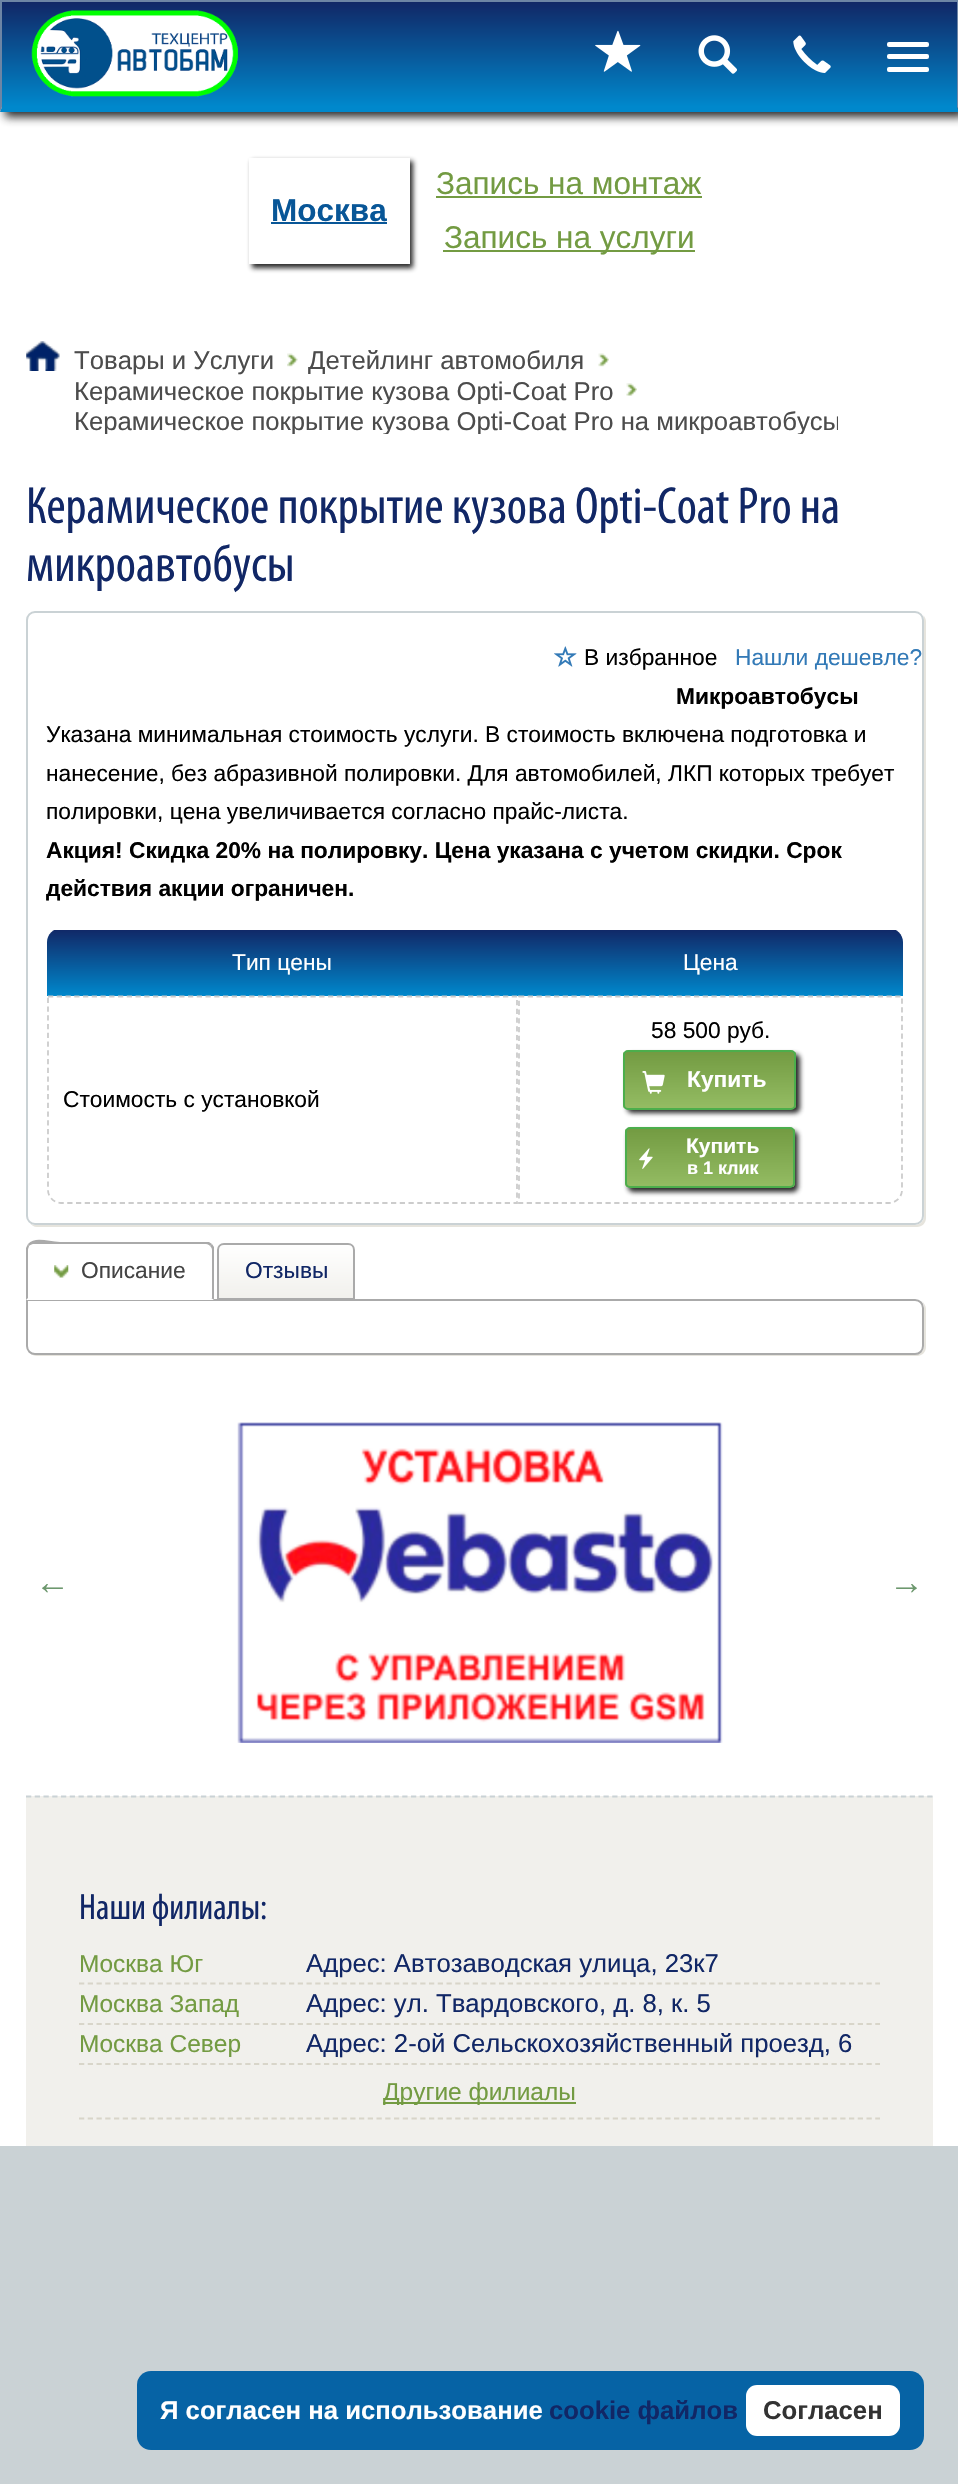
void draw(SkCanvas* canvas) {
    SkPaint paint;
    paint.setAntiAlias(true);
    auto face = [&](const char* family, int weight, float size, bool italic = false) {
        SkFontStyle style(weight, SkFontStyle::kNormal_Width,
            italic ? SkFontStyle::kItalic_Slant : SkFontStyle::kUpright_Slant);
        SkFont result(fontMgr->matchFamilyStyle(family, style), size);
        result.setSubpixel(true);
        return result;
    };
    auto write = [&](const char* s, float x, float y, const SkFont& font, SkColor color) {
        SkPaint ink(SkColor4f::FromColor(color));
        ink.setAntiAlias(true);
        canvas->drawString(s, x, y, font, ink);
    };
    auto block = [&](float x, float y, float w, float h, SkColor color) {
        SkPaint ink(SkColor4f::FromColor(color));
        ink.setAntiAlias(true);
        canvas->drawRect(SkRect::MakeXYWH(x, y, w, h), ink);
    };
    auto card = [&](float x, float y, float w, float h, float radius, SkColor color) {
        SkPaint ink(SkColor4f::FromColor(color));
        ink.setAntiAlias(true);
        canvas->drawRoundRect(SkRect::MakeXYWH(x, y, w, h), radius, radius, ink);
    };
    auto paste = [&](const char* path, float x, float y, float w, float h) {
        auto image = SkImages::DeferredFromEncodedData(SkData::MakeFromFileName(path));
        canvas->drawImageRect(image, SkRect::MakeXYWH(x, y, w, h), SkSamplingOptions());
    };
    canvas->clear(SkColorSetRGB(202, 210, 213));
    block(0, 107, 958, 2039, SK_ColorWHITE);
    paint.setColor(SkColorSetARGB(242, 30, 30, 30));
    paint.setMaskFilter(SkMaskFilter::MakeBlur(kNormal_SkBlurStyle, 4.5f));
    canvas->drawRect(SkRect::MakeXYWH(5, 5, 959, 112), paint);
    paint.setMaskFilter(nullptr);
    {
        const SkColor colors[] = {SkColorSetRGB(17, 39, 102), SkColorSetRGB(0, 136, 204)};
        const float stops[] = {0, 1};
        const SkPoint ends[] = {{480, 1.7f}, {480, 107}};
        paint.setShader(SkGradientShader::MakeLinear(ends, colors, stops, 2, SkTileMode::kClamp));
        paint.setAlpha(255);
    }
    canvas->drawRect(SkRect::MakeXYWH(2, 2, 955, 105), paint);
    block(0, 0, 958, 2, SkColorSetRGB(109, 133, 165));
    paint.setShader(nullptr);
    paint.setColor(SkColorSetRGB(109, 133, 165));
    canvas->drawPath(SkPathBuilder().moveTo(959, 0).lineTo(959, 112).lineTo(957, 107).lineTo(957, 2).close().detach(), paint);
    paint.setColor(SkColorSetRGB(0, 136, 204));
    canvas->drawPath(SkPathBuilder().moveTo(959, 112).lineTo(0, 112).lineTo(2, 107).lineTo(957, 107).close().detach(), paint);
    paint.setColor(SkColorSetRGB(109, 133, 165));
    canvas->drawPath(SkPathBuilder().moveTo(0, 112).lineTo(0, 0).lineTo(2, 2).lineTo(2, 107).close().detach(), paint);
    paste("pic1.png", 31, 10, 207, 87);
    paste("pic2.png", 595, 30, 46, 42);
    paste("pic3.png", 698, 35, 39, 39);
    paste("pic4.png", 793, 35, 38, 38);
    card(887, 42, 42, 5, 2, SK_ColorWHITE);
    card(887, 54, 42, 5, 2, SK_ColorWHITE);
    card(887, 67, 42, 5, 2, SK_ColorWHITE);
    canvas->save();
    canvas->clipPath(SkPathBuilder(SkPathFillType::kEvenOdd).moveTo(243, 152).lineTo(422, 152).lineTo(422, 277).lineTo(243, 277).close().moveTo(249, 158).lineTo(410, 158).lineTo(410, 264).lineTo(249, 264).close().detach(), true);
    paint.setColor(SkColorSetARGB(242, 30, 30, 30));
    paint.setMaskFilter(SkMaskFilter::MakeBlur(kNormal_SkBlurStyle, 2.5f));
    canvas->drawRect(SkRect::MakeXYWH(252, 161, 161, 107), paint);
    paint.setMaskFilter(nullptr);
    canvas->restore();
    auto kFont1 = face("Liberation Sans", 700, 31.5f);
    write("Москва", 271, 221, kFont1, SkColorSetRGB(8, 86, 151));
    block(271, 222, 116, 2, SkColorSetRGB(8, 86, 151));
    auto kFont2 = face("Liberation Sans", 400, 31.5f);
    write("Запись на монтаж", 436, 194, kFont2, SkColorSetRGB(115, 155, 66));
    block(436, 196, 266, 2, SkColorSetRGB(115, 155, 66));
    block(443, 250, 252, 2, SkColorSetRGB(115, 155, 66));
    write("Запись на услуги", 444, 248, kFont2, SkColorSetRGB(115, 155, 66));
    paste("pic5.png", 26, 341, 34, 30);
    auto kFont3 = face("Liberation Sans", 400, 25.7f);
    write("Товары и Услуги", 74, 369, kFont3, SkColorSetRGB(76, 76, 76));
    paste("pic6.png", 287, 353, 11, 14);
    write("Детейлинг автомобиля", 308, 369, kFont3, SkColorSetRGB(76, 76, 76));
    paste("pic7.png", 598, 353, 11, 14);
    canvas->save();
    canvas->clipRect(SkRect::MakeXYWH(74, 378, 539, 26));
    write("Керамическое покрытие кузова Opti-Coat Pro", 74, 400, kFont3, SkColorSetRGB(76, 76, 76));
    canvas->restore();
    paste("pic8.png", 626, 383, 11, 13);
    canvas->save();
    canvas->clipRect(SkRect::MakeXYWH(74, 410, 764, 24));
    write("Керамическое покрытие кузова Opti-Coat Pro на микроавтобусы", 74, 430, kFont3, SkColorSetRGB(76, 76, 76));
    canvas->restore();
    auto kFont4 = face("Myriad", 400, 52.5f);
    write("Керамическое покрытие кузова Opti-Coat Pro на", 26, 523, kFont4, SkColorSetRGB(17, 39, 102));
    write("микроавтобусы", 26, 581, kFont4, SkColorSetRGB(17, 39, 102));
    paint.setColor(SkColorSetRGB(230, 228, 221));
    canvas->drawPath(SkPathBuilder().moveTo(30, 1223).cubicTo(31, 1225, 34, 1227, 37, 1227).lineTo(917, 1227).cubicTo(922, 1227, 926, 1223, 926, 1218).lineTo(926, 622).cubicTo(926, 619, 925, 617, 923, 615).cubicTo(924, 616, 924, 618, 924, 620).lineTo(924, 1216).cubicTo(924, 1221, 920, 1225, 915, 1225).lineTo(35, 1225).cubicTo(33, 1225, 31, 1224, 30, 1223).close().detach(), paint);
    paint.setColor(SK_ColorWHITE);
    canvas->drawRoundRect(SkRect::MakeXYWH(27, 612, 896, 612), 8, 8, paint);
    paint.setStyle(SkPaint::kStroke_Style);
    paint.setStrokeWidth(2);
    paint.setColor(SkColorSetRGB(202, 210, 213));
    canvas->drawRoundRect(SkRect::MakeXYWH(27, 612, 896, 612), 8, 8, paint);
    paste("pic9.png", 554, 646, 23, 21);
    auto kFont5 = face("Liberation Sans", 400, 22.75f);
    write("В избранное", 584, 665, kFont5, SK_ColorBLACK);
    write("Нашли дешевле?", 735, 665, kFont5, SkColorSetRGB(51, 122, 183));
    auto kFont6 = face("Liberation Sans", 700, 22.75f);
    write("Микроавтобусы", 676, 704, kFont6, SK_ColorBLACK);
    write("Указана минимальная стоимость услуги. В стоимость включена подготовка и", 46, 742, kFont5, SK_ColorBLACK);
    write("нанесение, без абразивной полировки. Для автомобилей, ЛКП которых требует", 46, 781, kFont5, SK_ColorBLACK);
    write("полировки, цена увеличивается согласно прайс-листа.", 46, 819, kFont5, SK_ColorBLACK);
    write("Акция! Скидка 20% на полировку. Цена указана с учетом скидки. Срок", 46, 858, kFont6, SK_ColorBLACK);
    write("действия акции ограничен.", 46, 896, kFont6, SK_ColorBLACK);
    canvas->save();
    canvas->clipPath(SkPathBuilder().moveTo(61, 928).lineTo(518, 928).lineTo(518, 996).lineTo(47, 996).lineTo(47, 942).cubicTo(47, 934.5f, 53.5f, 928, 61, 928).close().detach(), true);
    paint.setStyle(SkPaint::kFill_Style);
    {
        const SkColor colors[] = {SkColorSetRGB(17, 39, 102), SkColorSetRGB(0, 136, 204)};
        const float stops[] = {0, 1};
        const SkPoint ends[] = {{283, 929}, {283, 996}};
        paint.setShader(SkGradientShader::MakeLinear(ends, colors, stops, 2, SkTileMode::kClamp));
        paint.setAlpha(255);
    }
    canvas->drawRect(SkRect::MakeXYWH(47, 930, 471, 66), paint);
    canvas->restore();
    block(54, 929, 842, 1, SK_ColorWHITE);
    write("Тип цены", 232, 970, kFont5, SK_ColorWHITE);
    canvas->save();
    canvas->clipPath(SkPathBuilder().moveTo(518, 928).lineTo(889, 928).cubicTo(896.5f, 928, 903, 934.5f, 903, 942).lineTo(903, 996).lineTo(518, 996).close().detach(), true);
    {
        const SkColor colors[] = {SkColorSetRGB(17, 39, 102), SkColorSetRGB(0, 136, 204)};
        const float stops[] = {0, 1};
        const SkPoint ends[] = {{711, 929}, {711, 996}};
        paint.setShader(SkGradientShader::MakeLinear(ends, colors, stops, 2, SkTileMode::kClamp));
        paint.setAlpha(255);
    }
    canvas->drawRect(SkRect::MakeXYWH(518, 930, 385, 66), paint);
    canvas->restore();
    write("Цена", 683, 970, kFont5, SK_ColorWHITE);
    paint.setStyle(SkPaint::kStroke_Style);
    paint.setStrokeWidth(1.8f);
    paint.setShader(nullptr);
    paint.setColor(SkColorSetRGB(204, 204, 204));
    paint.setPathEffect(SkDashPathEffect::Make({{5.25f, 3.5f}}, 0));
    canvas->drawPath(SkPathBuilder().moveTo(48, 996.5f).lineTo(517, 996.5f).lineTo(517, 1203).lineTo(61, 1203).cubicTo(54, 1203, 48, 1197, 48, 1190).close().detach(), paint);
    paint.setPathEffect(nullptr);
    write("Стоимость с установкой", 63, 1107, kFont5, SK_ColorBLACK);
    paint.setPathEffect(SkDashPathEffect::Make({{5.25f, 3.5f}}, 0));
    canvas->drawPath(SkPathBuilder().moveTo(519, 996.5f).lineTo(902, 996.5f).lineTo(902, 1190).cubicTo(902, 1197, 896, 1203, 889, 1203).lineTo(519, 1203).close().detach(), paint);
    paint.setPathEffect(nullptr);
    write("58 500 руб.", 651, 1038, kFont5, SK_ColorBLACK);
    paint.setStyle(SkPaint::kFill_Style);
    paint.setColor(SkColorSetARGB(242, 30, 30, 30));
    paint.setMaskFilter(SkMaskFilter::MakeBlur(kNormal_SkBlurStyle, 2.5f));
    canvas->drawRoundRect(SkRect::MakeXYWH(627, 1054, 173, 59), 5, 5, paint);
    paint.setMaskFilter(nullptr);
    canvas->save();
    canvas->clipPath(SkPathBuilder().moveTo(628, 1050).lineTo(791, 1050).cubicTo(794, 1050, 796, 1052, 796, 1055).lineTo(796, 1105).cubicTo(796, 1108, 794, 1110, 791, 1110).lineTo(628, 1110).cubicTo(625, 1110, 623, 1108, 623, 1105).lineTo(623, 1055).cubicTo(623, 1052, 625, 1050, 628, 1050).close().detach(), true);
    {
        const SkColor colors[] = {SkColorSetRGB(115, 155, 66), SkColorSetRGB(148, 188, 99)};
        const float stops[] = {0, 1};
        const SkPoint ends[] = {{710, 1052}, {710, 1108}};
        paint.setShader(SkGradientShader::MakeLinear(ends, colors, stops, 2, SkTileMode::kClamp));
        paint.setAlpha(255);
    }
    canvas->drawRect(SkRect::MakeXYWH(623, 1052, 173, 56), paint);
    canvas->restore();
    paint.setStyle(SkPaint::kStroke_Style);
    paint.setStrokeWidth(2);
    paint.setShader(nullptr);
    paint.setColor(SkColorSetRGB(76, 174, 76));
    canvas->drawRoundRect(SkRect::MakeXYWH(624, 1051, 171, 58), 4, 4, paint);
    paste("pic10.png", 642, 1071, 23, 23);
    write("Купить", 687, 1087, kFont6, SK_ColorWHITE);
    paint.setStyle(SkPaint::kFill_Style);
    paint.setColor(SkColorSetARGB(242, 30, 30, 30));
    paint.setMaskFilter(SkMaskFilter::MakeBlur(kNormal_SkBlurStyle, 2.5f));
    canvas->drawRoundRect(SkRect::MakeXYWH(628, 1131, 170, 61), 5, 5, paint);
    paint.setMaskFilter(nullptr);
    canvas->save();
    canvas->clipPath(SkPathBuilder().moveTo(630, 1127).lineTo(790, 1127).cubicTo(793, 1127, 795, 1129, 795, 1132).lineTo(795, 1183).cubicTo(795, 1186, 793, 1188, 790, 1188).lineTo(630, 1188).cubicTo(627, 1188, 625, 1186, 625, 1183).lineTo(625, 1132).cubicTo(625, 1129, 627, 1127, 630, 1127).close().detach(), true);
    {
        const SkColor colors[] = {SkColorSetRGB(115, 155, 66), SkColorSetRGB(148, 188, 99)};
        const float stops[] = {0, 1};
        const SkPoint ends[] = {{710, 1129}, {710, 1187}};
        paint.setShader(SkGradientShader::MakeLinear(ends, colors, stops, 2, SkTileMode::kClamp));
        paint.setAlpha(255);
    }
    canvas->drawRect(SkRect::MakeXYWH(625, 1129, 170, 58), paint);
    canvas->restore();
    paint.setStyle(SkPaint::kStroke_Style);
    paint.setShader(nullptr);
    paint.setColor(SkColorSetRGB(76, 174, 76));
    canvas->drawRoundRect(SkRect::MakeXYWH(626, 1128, 168, 59), 4, 4, paint);
    paste("pic11.png", 639, 1148, 14, 21);
    auto kFont7 = face("Liberation Sans", 700, 21);
    write("Купить", 686, 1153, kFont7, SK_ColorWHITE);
    auto kFont8 = face("Liberation Sans", 700, 18);
    write("в 1 клик", 687, 1174, kFont8, SK_ColorWHITE);
    paint.setStyle(SkPaint::kFill_Style);
    paint.setColor(SkColorSetRGB(230, 228, 221));
    canvas->drawPath(SkPathBuilder().moveTo(31, 1353).cubicTo(32, 1355, 34, 1356, 37, 1356).lineTo(917, 1356).cubicTo(922, 1356, 926, 1352, 926, 1347).lineTo(926, 1309).cubicTo(926, 1306, 924, 1303, 922, 1301).cubicTo(923, 1303, 924, 1305, 924, 1307).lineTo(924, 1346).cubicTo(924, 1351, 920, 1354, 915, 1354).lineTo(35, 1354).cubicTo(33, 1354, 32, 1354, 31, 1353).close().detach(), paint);
    paint.setColor(SK_ColorWHITE);
    canvas->drawPath(SkPathBuilder().moveTo(27, 1300).lineTo(915, 1300).cubicTo(919.5f, 1300, 923, 1303.5f, 923, 1308).lineTo(923, 1346).cubicTo(923, 1350.5f, 919.5f, 1354, 915, 1354).lineTo(35, 1354).cubicTo(30.5f, 1354, 27, 1350.5f, 27, 1346).close().detach(), paint);
    paint.setStyle(SkPaint::kStroke_Style);
    paint.setColor(SkColorSetRGB(170, 170, 170));
    canvas->drawPath(SkPathBuilder().moveTo(27, 1300).lineTo(915, 1300).cubicTo(919.5f, 1300, 923, 1303.5f, 923, 1308).lineTo(923, 1346).cubicTo(923, 1350.5f, 919.5f, 1354, 915, 1354).lineTo(35, 1354).cubicTo(30.5f, 1354, 27, 1350.5f, 27, 1346).close().detach(), paint);
    paint.setStyle(SkPaint::kFill_Style);
    paint.setColor(SK_ColorWHITE);
    canvas->drawPath(SkPathBuilder().moveTo(33, 1243).lineTo(207, 1243).cubicTo(211, 1243, 214, 1246, 214, 1250).lineTo(214, 1300).lineTo(26, 1300).lineTo(26, 1250).cubicTo(26, 1246, 29, 1243, 33, 1243).close().detach(), paint);
    paste("pic12.png", 54, 1265, 15, 13);
    paint.setColor(SkColorSetRGB(170, 170, 170));
    canvas->drawPath(SkPathBuilder().moveTo(33, 1244).cubicTo(32, 1244, 30, 1245, 29, 1246).lineTo(28, 1244).cubicTo(35, 1236, 49, 1242, 60, 1242).lineTo(209, 1242).lineTo(212, 1244).lineTo(210, 1246).cubicTo(209, 1245, 208, 1244, 206, 1244).close().detach(), paint);
    canvas->drawPath(SkPathBuilder().moveTo(214, 1300).lineTo(211, 1298).lineTo(212, 1298).lineTo(212, 1250).cubicTo(212, 1248, 211, 1247, 210, 1246).lineTo(212, 1244).lineTo(214, 1247).close().detach(), paint);
    paint.setColor(SK_ColorWHITE);
    canvas->drawPath(SkPathBuilder().moveTo(213, 1300).lineTo(26, 1300).lineTo(28, 1298).lineTo(211, 1298).close().detach(), paint);
    paint.setColor(SkColorSetRGB(170, 170, 170));
    canvas->drawPath(SkPathBuilder().moveTo(26, 1248).lineTo(28, 1244).lineTo(29, 1246).cubicTo(29, 1247, 28, 1248, 28, 1250).lineTo(28, 1298).lineTo(26, 1300).close().detach(), paint);
    write("Описание", 81, 1278, kFont5, SkColorSetRGB(68, 68, 68));
    canvas->save();
    canvas->clipPath(SkPathBuilder().moveTo(224, 1243).lineTo(348, 1243).cubicTo(352, 1243, 355, 1246, 355, 1250).lineTo(355, 1300).lineTo(217, 1300).lineTo(217, 1250).cubicTo(217, 1246, 220, 1243, 224, 1243).close().detach(), true);
    {
        const SkColor colors[] = {SK_ColorWHITE, SkColorSetRGB(241, 240, 236)};
        const float stops[] = {0, 1};
        const SkPoint ends[] = {{286, 1244}, {286, 1299}};
        paint.setShader(SkGradientShader::MakeLinear(ends, colors, stops, 2, SkTileMode::kClamp));
        paint.setAlpha(255);
    }
    canvas->drawRect(SkRect::MakeXYWH(217, 1244, 138, 54), paint);
    canvas->restore();
    paint.setStyle(SkPaint::kStroke_Style);
    paint.setShader(nullptr);
    paint.setColor(SkColorSetRGB(170, 170, 170));
    canvas->drawPath(SkPathBuilder().moveTo(224, 1244).lineTo(348, 1244).cubicTo(351.5f, 1244, 354, 1246.5f, 354, 1250).lineTo(354, 1299).lineTo(218, 1299).lineTo(218, 1250).cubicTo(218, 1246.5f, 220.5f, 1244, 224, 1244).close().detach(), paint);
    write("Отзывы", 245, 1278, kFont5, SkColorSetRGB(17, 39, 102));
    auto kFont9 = face("Liberation Serif", 400, 35);
    write("←", 35, 1594, kFont9, SkColorSetRGB(109, 152, 110));
    paste("pic13.png", 237, 1422, 486, 321);
    write("→", 889, 1594, kFont9, SkColorSetRGB(109, 152, 110));
    block(26, 1796, 907, 350, SkColorSetRGB(241, 240, 236));
    paint.setStrokeWidth(1.8f);
    paint.setColor(SkColorSetRGB(202, 210, 213));
    paint.setPathEffect(SkDashPathEffect::Make({{5.25f, 3.5f}}, 0));
    canvas->drawPath(SkPathBuilder().moveTo(26, 1796.5f).lineTo(933, 1796.5f).detach(), paint);
    paint.setPathEffect(nullptr);
    auto kFont10 = face("Myriad", 400, 36.75f);
    write("Наши филиалы:", 79, 1919, kFont10, SkColorSetRGB(17, 39, 102));
    paint.setColor(SkColorSetRGB(216, 213, 201));
    paint.setPathEffect(SkDashPathEffect::Make({{5.25f, 3.5f}}, 0));
    canvas->drawPath(SkPathBuilder().moveTo(79, 1983.5f).lineTo(880, 1983.5f).detach(), paint);
    paint.setPathEffect(nullptr);
    auto kFont11 = face("Liberation Sans", 400, 24.5f);
    write("Москва Юг", 79, 1972, kFont11, SkColorSetRGB(115, 155, 66));
    write("Адрес: Автозаводская улица, 23к7", 306, 1972, kFont3, SkColorSetRGB(17, 39, 102));
    paint.setPathEffect(SkDashPathEffect::Make({{5.25f, 3.5f}}, 0));
    canvas->drawPath(SkPathBuilder().moveTo(79, 2024).lineTo(880, 2024).detach(), paint);
    paint.setPathEffect(nullptr);
    write("Москва Запад", 79, 2012, kFont11, SkColorSetRGB(115, 155, 66));
    write("Адрес: ул. Твардовского, д. 8, к. 5", 306, 2012, kFont3, SkColorSetRGB(17, 39, 102));
    paint.setPathEffect(SkDashPathEffect::Make({{5.25f, 3.5f}}, 0));
    canvas->drawPath(SkPathBuilder().moveTo(79, 2064).lineTo(880, 2064).detach(), paint);
    paint.setPathEffect(nullptr);
    write("Москва Север", 79, 2052, kFont11, SkColorSetRGB(115, 155, 66));
    write("Адрес: 2-ой Сельскохозяйственный проезд, 6", 306, 2052, kFont3, SkColorSetRGB(17, 39, 102));
    paint.setPathEffect(SkDashPathEffect::Make({{5.25f, 3.5f}}, 0));
    canvas->drawPath(SkPathBuilder().moveTo(79, 2118.5f).lineTo(880, 2118.5f).detach(), paint);
    paint.setPathEffect(nullptr);
    block(383, 2102, 193, 2, SkColorSetRGB(115, 155, 66));
    write("Другие филиалы", 383, 2100, kFont11, SkColorSetRGB(115, 155, 66));
    card(137, 2371, 787, 79, 14, SkColorSetRGB(6, 99, 165));
    auto kFont12 = face("Liberation Sans", 700, 25.7f);
    write("Я согласен на использование", 160, 2419, kFont12, SK_ColorWHITE);
    write("cookie файлов", 549, 2419, kFont12, SkColorSetRGB(17, 39, 102));
    card(746, 2385, 154, 51, 11, SK_ColorWHITE);
    write("Согласен", 763, 2419, kFont12, SkColorSetRGB(51, 51, 51));
}
